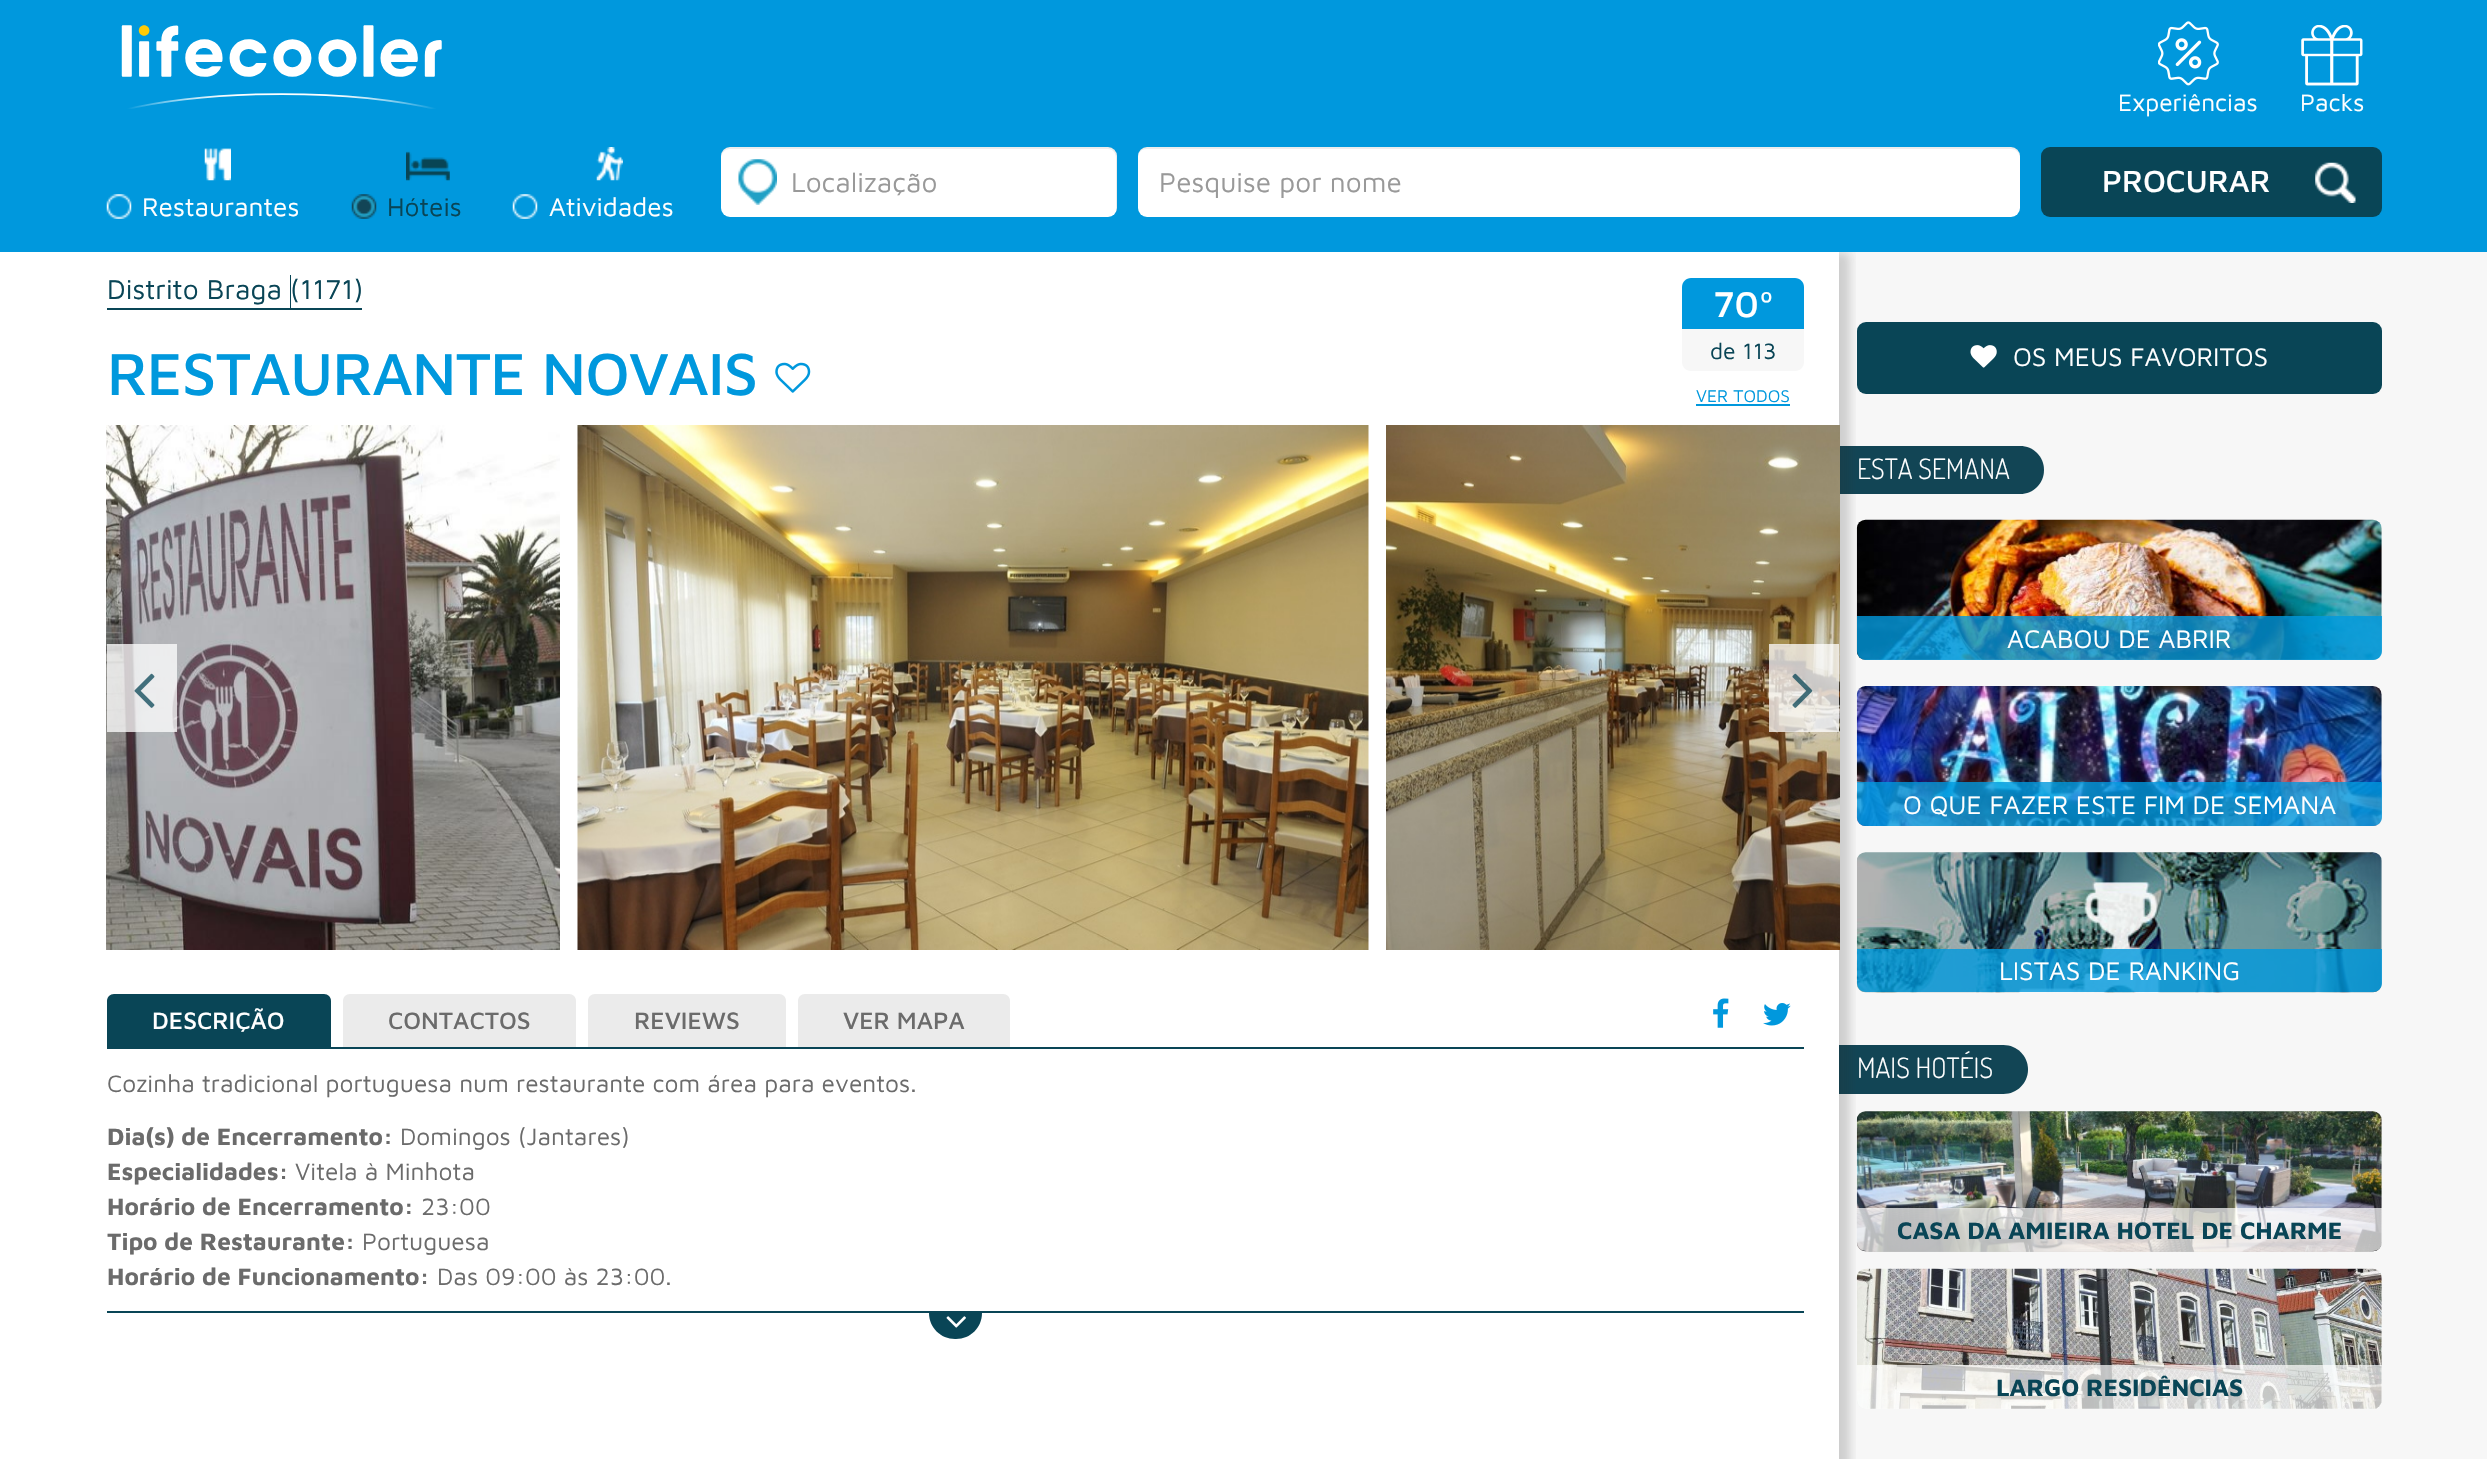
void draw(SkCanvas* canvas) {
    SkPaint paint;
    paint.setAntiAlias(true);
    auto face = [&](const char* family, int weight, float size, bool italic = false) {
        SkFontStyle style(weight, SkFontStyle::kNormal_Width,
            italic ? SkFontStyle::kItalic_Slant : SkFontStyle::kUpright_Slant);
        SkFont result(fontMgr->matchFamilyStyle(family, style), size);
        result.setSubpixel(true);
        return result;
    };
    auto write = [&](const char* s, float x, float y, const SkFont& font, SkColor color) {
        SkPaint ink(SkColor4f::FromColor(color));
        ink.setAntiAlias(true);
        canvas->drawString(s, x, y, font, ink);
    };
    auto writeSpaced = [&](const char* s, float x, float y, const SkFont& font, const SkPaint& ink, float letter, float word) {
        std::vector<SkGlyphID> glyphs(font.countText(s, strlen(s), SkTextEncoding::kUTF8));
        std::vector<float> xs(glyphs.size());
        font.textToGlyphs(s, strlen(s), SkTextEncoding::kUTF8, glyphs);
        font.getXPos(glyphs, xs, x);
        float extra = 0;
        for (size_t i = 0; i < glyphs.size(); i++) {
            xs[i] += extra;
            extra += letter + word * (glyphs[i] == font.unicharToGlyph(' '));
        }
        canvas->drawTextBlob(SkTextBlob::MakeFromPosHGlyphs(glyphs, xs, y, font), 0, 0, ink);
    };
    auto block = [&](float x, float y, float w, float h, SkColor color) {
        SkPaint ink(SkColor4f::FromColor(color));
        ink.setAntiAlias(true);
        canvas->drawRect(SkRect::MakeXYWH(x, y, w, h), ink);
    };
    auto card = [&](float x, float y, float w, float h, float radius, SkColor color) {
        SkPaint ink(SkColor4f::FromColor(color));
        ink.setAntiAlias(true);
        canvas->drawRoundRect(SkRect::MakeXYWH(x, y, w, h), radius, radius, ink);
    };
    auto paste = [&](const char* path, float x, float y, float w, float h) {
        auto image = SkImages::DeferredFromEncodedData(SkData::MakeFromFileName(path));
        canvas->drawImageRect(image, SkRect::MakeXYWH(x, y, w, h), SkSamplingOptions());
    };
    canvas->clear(SK_ColorWHITE);
    block(1839, 252, 648, 1207, SkColorSetRGB(247, 247, 247));
    card(1857, 322, 525, 72, 9, SkColorSetRGB(9, 69, 86));
    paint.setColor(SkColorSetRGB(18, 69, 85));
    canvas->drawPath(SkPathBuilder().moveTo(1839, 446).lineTo(2020, 446).cubicTo(2033.5f, 446, 2044, 456.5f, 2044, 470).cubicTo(2044, 483.5f, 2033.5f, 494, 2020, 494).lineTo(1839, 494).close().detach(), paint);
    paste("pic22.png", 1856, 519, 526, 141);
    paint.setColor(SkColorSetARGB(204, 0, 152, 221));
    canvas->drawPath(SkPathBuilder().moveTo(1857, 616).lineTo(2382, 616).lineTo(2382, 651).cubicTo(2382, 656, 2378, 660, 2373, 660).lineTo(1866, 660).cubicTo(1861, 660, 1857, 656, 1857, 651).close().detach(), paint);
    paste("pic23.png", 1856, 686, 526, 140);
    canvas->drawPath(SkPathBuilder().moveTo(1857, 782).lineTo(2382, 782).lineTo(2382, 817).cubicTo(2382, 822, 2378, 826, 2373, 826).lineTo(1866, 826).cubicTo(1861, 826, 1857, 822, 1857, 817).close().detach(), paint);
    paste("pic24.png", 1856, 852, 526, 141);
    canvas->drawPath(SkPathBuilder().moveTo(1857, 949).lineTo(2382, 949).lineTo(2382, 983).cubicTo(2382, 988, 2378, 992, 2373, 992).lineTo(1866, 992).cubicTo(1861, 992, 1857, 988, 1857, 983).close().detach(), paint);
    paint.setColor(SkColorSetRGB(18, 69, 85));
    canvas->drawPath(SkPathBuilder().moveTo(1839, 1045).lineTo(2003.5f, 1045).cubicTo(2017, 1045, 2028, 1056, 2028, 1069.5f).cubicTo(2028, 1083, 2017, 1094, 2003.5f, 1094).lineTo(1839, 1094).close().detach(), paint);
    paste("pic25.png", 1856, 1111, 526, 141);
    paint.setColor(SkColorSetARGB(179, 255, 255, 255));
    canvas->drawPath(SkPathBuilder().moveTo(1857, 1208).lineTo(2382, 1208).lineTo(2382, 1242).cubicTo(2382, 1247, 2378, 1251, 2373, 1251).lineTo(1866, 1251).cubicTo(1861, 1251, 1857, 1247, 1857, 1242).close().detach(), paint);
    paste("pic26.png", 1856, 1268, 526, 141);
    canvas->drawPath(SkPathBuilder().moveTo(1857, 1365).lineTo(2382, 1365).lineTo(2382, 1400).cubicTo(2382, 1405, 2378, 1409, 2373, 1409).lineTo(1866, 1409).cubicTo(1861, 1409, 1857, 1405, 1857, 1400).close().detach(), paint);
    canvas->save();
    canvas->clipRect(SkRect::MakeXYWH(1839, 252, 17, 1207));
    paint.setColor(SkColorSetARGB(51, 41, 41, 41));
    paint.setMaskFilter(SkMaskFilter::MakeBlur(kNormal_SkBlurStyle, 5));
    canvas->drawRect(SkRect::MakeXYWH(117, 252, 1733, 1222), paint);
    paint.setMaskFilter(nullptr);
    canvas->restore();
    block(0, 0, 2487, 252, SkColorSetRGB(0, 152, 221));
    paste("pic1.png", 121, 25, 321, 84);
    paste("pic2.png", 2158, 21, 61, 65);
    auto kFont1 = face("Maven Pro", 400, 24.5f);
    write("Experiências", 2118, 111, kFont1, SK_ColorWHITE);
    paste("pic3.png", 2301, 25, 62, 61);
    write("Packs", 2300, 111, kFont1, SK_ColorWHITE);
    card(721, 147, 396, 70, 9, SK_ColorWHITE);
    paint.setColor(SkColorSetARGB(18, 0, 0, 0));
    canvas->drawPath(SkPathBuilder().moveTo(730, 149).lineTo(1108, 149).cubicTo(1113, 149, 1116, 153, 1116, 158).lineTo(1116, 213).cubicTo(1117, 211, 1117, 210, 1117, 208).lineTo(1117, 156).cubicTo(1117, 151, 1113, 147, 1108, 147).lineTo(730, 147).cubicTo(725, 147, 721, 151, 721, 156).lineTo(721, 158).cubicTo(721, 153, 725, 149, 730, 149).close().detach(), paint);
    paste("pic4.png", 738, 159, 39, 46);
    auto kFont2 = face("Maven Pro", 400, 28);
    write("Localização", 791, 192, kFont2, SkColorSetRGB(153, 153, 153));
    card(1138, 147, 882, 70, 9, SK_ColorWHITE);
    canvas->drawPath(SkPathBuilder().moveTo(1146, 149).lineTo(2011, 149).cubicTo(2016, 149, 2020, 153, 2020, 158).lineTo(2020, 156).cubicTo(2020, 151, 2016, 147, 2011, 147).lineTo(1147, 147).cubicTo(1142, 147, 1138, 151, 1138, 156).lineTo(1138, 158).cubicTo(1138, 153, 1141, 149, 1146, 149).close().detach(), paint);
    write("Pesquise por nome", 1159, 192, kFont2, SkColorSetRGB(153, 153, 153));
    card(2041, 147, 341, 70, 9, SkColorSetRGB(9, 69, 86));
    auto kFont3 = face("Maven Pro", 500, 31.5f);
    write("PROCURAR", 2102, 192, kFont3, SK_ColorWHITE);
    paste("pic5.png", 2315, 162, 41, 41);
    paste("pic6.png", 204, 148, 27, 33);
    paste("pic7.png", 106, 194, 26, 25);
    auto kFont4 = face("Maven Pro", 400, 26.25f);
    write("Restaurantes", 142, 216, kFont4, SK_ColorWHITE);
    paste("pic8.png", 406, 151, 44, 30);
    paste("pic9.png", 351, 194, 26, 25);
    write("Hóteis", 387, 216, kFont4, SkColorSetRGB(9, 69, 86));
    paste("pic10.png", 596, 147, 27, 34);
    paste("pic11.png", 512, 194, 26, 25);
    write("Atividades", 549, 216, kFont4, SK_ColorWHITE);
    paint.setColor(SkColorSetRGB(9, 69, 86));
    canvas->drawPath(SkPathBuilder().moveTo(107, 308).lineTo(107, 310).lineTo(291, 310).lineTo(291, 275).lineTo(290, 275).lineTo(290, 308).close().detach(), paint);
    write("Distrito Braga (1171)", 107, 299, kFont2, SkColorSetRGB(9, 69, 86));
    block(291, 308, 71, 2, SkColorSetRGB(9, 69, 86));
    auto kFont5 = face("Maven Pro", 500, 61.25f);
    paint.setColor(SkColorSetRGB(0, 152, 221));
    writeSpaced("RESTAURANTE NOVAIS", 107, 395, kFont5, paint, -0.9f, 0);
    paste("pic12.png", 775, 362, 36, 31);
    canvas->drawPath(SkPathBuilder().moveTo(1691, 278).lineTo(1795, 278).cubicTo(1800, 278, 1804, 282, 1804, 287).lineTo(1804, 329).lineTo(1682, 329).lineTo(1682, 287).cubicTo(1682, 282, 1686, 278, 1691, 278).close().detach(), paint);
    auto kFont6 = face("Maven Pro", 500, 37);
    write("70º", 1713, 317, kFont6, SK_ColorWHITE);
    paint.setColor(SkColorSetRGB(247, 247, 247));
    canvas->drawPath(SkPathBuilder().moveTo(1682, 329).lineTo(1804, 329).lineTo(1804, 362).cubicTo(1804, 367, 1800, 371, 1795, 371).lineTo(1691, 371).cubicTo(1686, 371, 1682, 367, 1682, 362).close().detach(), paint);
    auto kFont7 = face("Maven Pro", 400, 23);
    write("de 113", 1710, 359, kFont7, SkColorSetRGB(9, 69, 86));
    auto kFont8 = face("Maven Pro", 400, 17.5f);
    write("VER TODOS", 1696, 402, kFont8, SkColorSetRGB(0, 152, 221));
    block(1696, 404, 94, 2, SkColorSetRGB(0, 152, 221));
    paste("pic13.png", 106, 425, 454, 525);
    paste("pic14.png", 577, 425, 792, 525);
    paste("pic15.png", 1386, 425, 454, 525);
    block(107, 644, 70, 88, SkColorSetARGB(191, 255, 255, 255));
    paste("pic16.png", 134, 673, 21, 35);
    block(1769, 644, 70, 88, SkColorSetARGB(191, 255, 255, 255));
    paste("pic17.png", 1792, 673, 21, 35);
    block(107, 1047, 1697, 2, SkColorSetRGB(9, 69, 86));
    paint.setColor(SkColorSetRGB(9, 69, 86));
    canvas->drawPath(SkPathBuilder().moveTo(114, 994).lineTo(324, 994).cubicTo(328, 994, 331, 997, 331, 1001).lineTo(331, 1047).lineTo(107, 1047).lineTo(107, 1001).cubicTo(107, 997, 110, 994, 114, 994).close().detach(), paint);
    auto kFont9 = face("Maven Pro", 500, 24.5f);
    write("DESCRIÇÃO", 152, 1029, kFont9, SK_ColorWHITE);
    paint.setColor(SkColorSetRGB(235, 235, 235));
    canvas->drawPath(SkPathBuilder().moveTo(350, 994).lineTo(569, 994).cubicTo(573, 994, 576, 997, 576, 1001).lineTo(576, 1047).lineTo(343, 1047).lineTo(343, 1001).cubicTo(343, 997, 346, 994, 350, 994).close().detach(), paint);
    write("CONTACTOS", 388, 1029, kFont9, SkColorSetRGB(107, 107, 107));
    canvas->drawPath(SkPathBuilder().moveTo(595, 994).lineTo(779, 994).cubicTo(783, 994, 786, 997, 786, 1001).lineTo(786, 1047).lineTo(588, 1047).lineTo(588, 1001).cubicTo(588, 997, 591, 994, 595, 994).close().detach(), paint);
    write("REVIEWS", 634, 1029, kFont9, SkColorSetRGB(107, 107, 107));
    canvas->drawPath(SkPathBuilder().moveTo(805, 994).lineTo(1003, 994).cubicTo(1007, 994, 1010, 997, 1010, 1001).lineTo(1010, 1047).lineTo(798, 1047).lineTo(798, 1001).cubicTo(798, 997, 801, 994, 805, 994).close().detach(), paint);
    write("VER MAPA", 843, 1029, kFont9, SkColorSetRGB(107, 107, 107));
    paste("pic18.png", 1713, 998, 16, 30);
    paste("pic19.png", 1763, 1003, 28, 23);
    block(107, 1311, 1697, 2, SkColorSetRGB(9, 69, 86));
    write("Cozinha tradicional portuguesa num restaurante com área para eventos.", 107, 1092, kFont1, SkColorSetRGB(107, 107, 107));
    auto kFont10 = face("Maven Pro", 700, 24.5f);
    write("Dia(s) de Encerramento:", 107, 1145, kFont10, SkColorSetRGB(107, 107, 107));
    write("Domingos (Jantares)", 400, 1145, kFont1, SkColorSetRGB(107, 107, 107));
    write("Especialidades:", 107, 1180, kFont10, SkColorSetRGB(107, 107, 107));
    write("Vitela à Minhota", 295, 1180, kFont1, SkColorSetRGB(107, 107, 107));
    write("Horário de Encerramento:", 107, 1215, kFont10, SkColorSetRGB(107, 107, 107));
    write("23:00", 421, 1215, kFont1, SkColorSetRGB(107, 107, 107));
    write("Tipo de Restaurante:", 107, 1250, kFont10, SkColorSetRGB(107, 107, 107));
    write("Portuguesa", 362, 1250, kFont1, SkColorSetRGB(107, 107, 107));
    write("Horário de Funcionamento:", 107, 1285, kFont10, SkColorSetRGB(107, 107, 107));
    write("Das 09:00 às 23:00.", 437, 1285, kFont1, SkColorSetRGB(107, 107, 107));
    paint.setColor(SkColorSetRGB(9, 69, 86));
    canvas->drawPath(SkPathBuilder().moveTo(929, 1313).lineTo(982, 1313).cubicTo(982, 1327.5f, 970.5f, 1339, 956, 1339).lineTo(955, 1339).cubicTo(940.5f, 1339, 929, 1327.5f, 929, 1313).close().detach(), paint);
    paste("pic20.png", 946, 1316, 20, 12);
    paste("pic21.png", 1970, 345, 27, 23);
    write("OS MEUS FAVORITOS", 2013, 366, kFont4, SK_ColorWHITE);
    auto kFont11 = face("Dosis", 300, 28);
    write("ESTA SEMANA", 1857, 479, kFont11, SK_ColorWHITE);
    write("ACABOU DE ABRIR", 2007, 648, kFont4, SK_ColorWHITE);
    write("O QUE FAZER ESTE FIM DE SEMANA", 1903, 814, kFont4, SK_ColorWHITE);
    write("LISTAS DE RANKING", 1999, 980, kFont4, SK_ColorWHITE);
    write("MAIS HOTÉIS", 1857, 1078, kFont11, SK_ColorWHITE);
    write("CASA DA AMIEIRA HOTEL DE CHARME", 1897, 1239, kFont10, SkColorSetRGB(9, 69, 86));
    write("LARGO RESIDÊNCIAS", 1996, 1396, kFont10, SkColorSetRGB(9, 69, 86));
}
